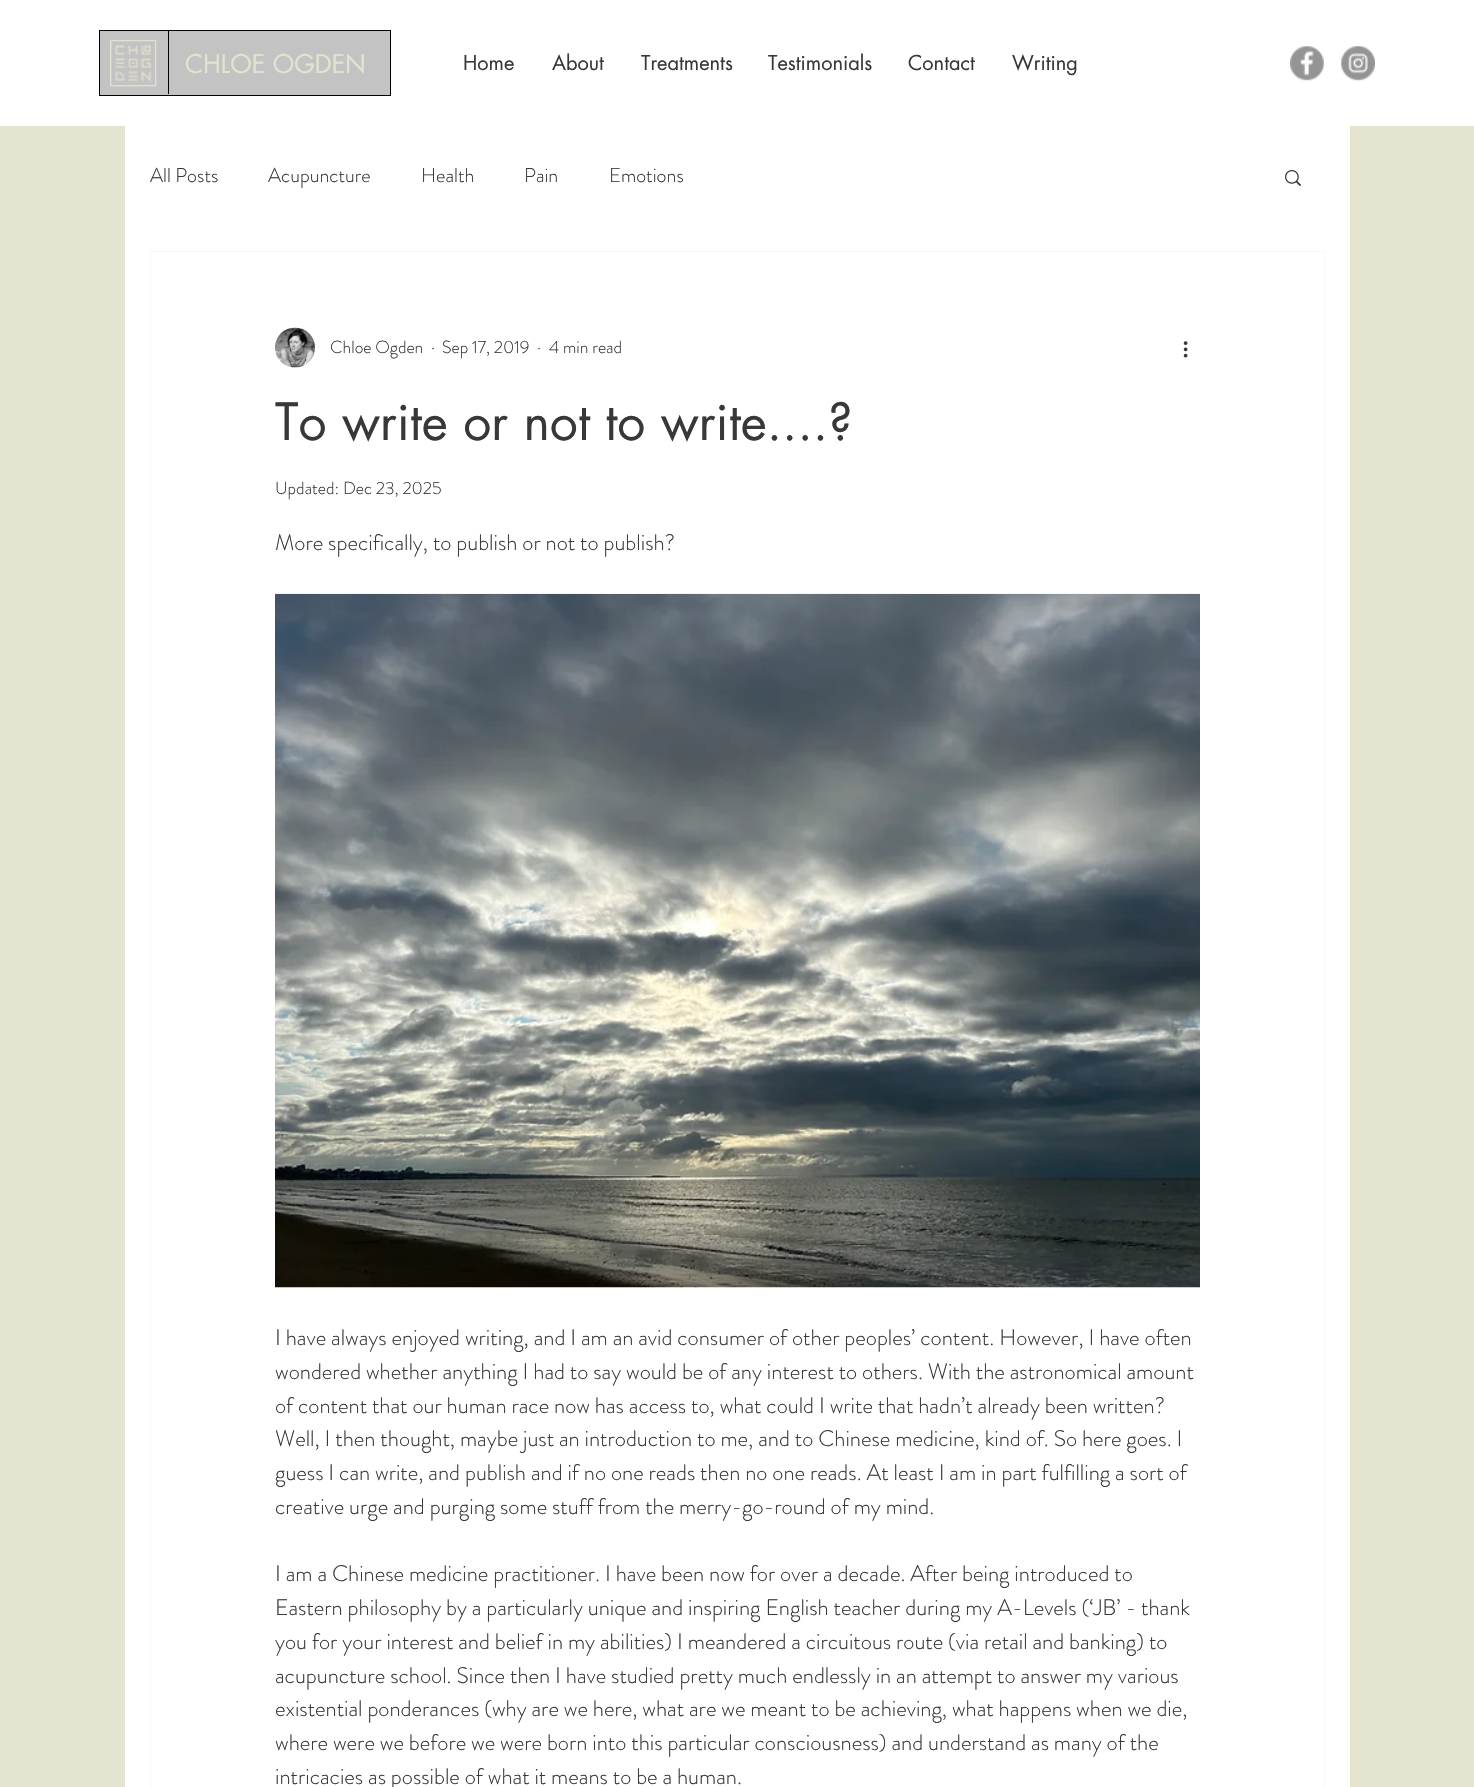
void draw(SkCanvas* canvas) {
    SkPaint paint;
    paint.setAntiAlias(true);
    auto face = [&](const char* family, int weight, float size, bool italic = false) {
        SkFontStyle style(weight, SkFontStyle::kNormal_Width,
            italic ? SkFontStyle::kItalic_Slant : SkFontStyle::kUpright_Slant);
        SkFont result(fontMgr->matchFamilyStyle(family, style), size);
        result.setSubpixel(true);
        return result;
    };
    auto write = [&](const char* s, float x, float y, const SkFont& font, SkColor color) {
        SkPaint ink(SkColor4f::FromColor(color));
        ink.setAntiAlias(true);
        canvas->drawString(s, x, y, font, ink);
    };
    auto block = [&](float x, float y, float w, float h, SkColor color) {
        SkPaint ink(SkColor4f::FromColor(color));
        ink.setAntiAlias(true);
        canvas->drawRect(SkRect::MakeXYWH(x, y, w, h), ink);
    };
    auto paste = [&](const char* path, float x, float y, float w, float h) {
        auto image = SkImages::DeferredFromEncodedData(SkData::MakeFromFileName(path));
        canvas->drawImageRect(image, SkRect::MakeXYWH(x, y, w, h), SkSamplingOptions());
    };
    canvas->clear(SkColorSetRGB(228, 227, 207));
    block(0, 0, 1474, 126, SK_ColorWHITE);
    paint.setColor(SkColorSetRGB(196, 195, 195));
    canvas->drawRect(SkRect::MakeXYWH(99.5f, 30.5f, 291, 65), paint);
    paint.setStyle(SkPaint::kStroke_Style);
    paint.setStrokeWidth(1);
    paint.setColor(SK_ColorBLACK);
    canvas->drawRect(SkRect::MakeXYWH(99.5f, 30.5f, 291, 65), paint);
    paste("pic1.png", 110, 40, 47, 47);
    block(168, 31, 1, 63, SK_ColorBLACK);
    auto kFont1 = face("futura", 400, 25);
    write("CHLOE OGDEN", 185, 73, kFont1, SkColorSetRGB(228, 227, 207));
    auto kFont2 = face("futura", 400, 20);
    write("Home", 463, 70, kFont2, SkColorSetRGB(56, 56, 56));
    write("About", 552, 70, kFont2, SkColorSetRGB(56, 56, 56));
    write("Treatments", 641, 70, kFont2, SkColorSetRGB(56, 56, 56));
    write("Testimonials", 768, 70, kFont2, SkColorSetRGB(56, 56, 56));
    write("Contact", 908, 70, kFont2, SkColorSetRGB(56, 56, 56));
    write("Writing", 1012, 70, kFont2, SkColorSetRGB(56, 56, 56));
    paste("pic2.png", 1290, 46, 34, 35);
    paste("pic3.png", 1341, 46, 34, 35);
    block(125, 126, 1225, 1661, SK_ColorWHITE);
    auto kFont3 = face("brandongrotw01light", 300, 20);
    write("All Posts", 150, 182, kFont3, SkColorSetRGB(56, 56, 56));
    write("Acupuncture", 268, 182, kFont3, SkColorSetRGB(56, 56, 56));
    write("Health", 421, 182, kFont3, SkColorSetRGB(56, 56, 56));
    write("Pain", 524, 182, kFont3, SkColorSetRGB(56, 56, 56));
    write("Emotions", 609, 182, kFont3, SkColorSetRGB(56, 56, 56));
    paste("pic4.png", 1285, 170, 16, 16);
    paint.setColor(SkColorSetRGB(248, 248, 248));
    canvas->drawRect(SkRect::MakeXYWH(150.5f, 251.5f, 1174, 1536), paint);
    paste("pic5.png", 275, 327, 40, 41);
    auto kFont4 = face("brandongrotw01light", 300, 17.5f);
    write("Chloe Ogden", 330, 353, kFont4, SkColorSetRGB(56, 56, 56));
    write("·", 431, 353, kFont4, SkColorSetRGB(56, 56, 56));
    write("Sep 17, 2019", 442, 353, kFont4, SkColorSetRGB(56, 56, 56));
    write("·", 537, 353, kFont4, SkColorSetRGB(56, 56, 56));
    write("4 min read", 549, 353, kFont4, SkColorSetRGB(56, 56, 56));
    paste("pic6.png", 1183, 341, 5, 17);
    auto kFont5 = face("futura", 400, 50);
    write("To write or not to write....?", 275, 440, kFont5, SkColorSetRGB(56, 56, 56));
    write("Updated: Dec 23, 2025", 275, 494, kFont4, SkColorSetRGB(56, 56, 56));
    auto kFont6 = face("brandongrotw01light", 300, 22.5f);
    write("More specifically, to publish or not to publish?", 275, 550, kFont6, SkColorSetRGB(56, 56, 56));
    paste("pic7.png", 275, 593, 925, 695);
    write("I have always enjoyed writing, and I am an avid consumer of other peoples’ content. However, I have often", 275, 1345, kFont6, SkColorSetRGB(56, 56, 56));
    write("wondered whether anything I had to say would be of any interest to others. With the astronomical amount", 275, 1379, kFont6, SkColorSetRGB(56, 56, 56));
    write("of content that our human race now has access to, what could I write that hadn’t already been written?", 275, 1413, kFont6, SkColorSetRGB(56, 56, 56));
    write("Well, I then thought, maybe just an introduction to me, and to Chinese medicine, kind of. So here goes. I", 275, 1446, kFont6, SkColorSetRGB(56, 56, 56));
    write("guess I can write, and publish and if no one reads then no one reads. At least I am in part fulfilling a sort of", 275, 1480, kFont6, SkColorSetRGB(56, 56, 56));
    write("creative urge and purging some stuff from the merry-go-round of my mind.", 275, 1514, kFont6, SkColorSetRGB(56, 56, 56));
    write("I am a Chinese medicine practitioner. I have been now for over a decade. After being introduced to", 275, 1581, kFont6, SkColorSetRGB(56, 56, 56));
    write("Eastern philosophy by a particularly unique and inspiring English teacher during my A-Levels (‘JB’ - thank", 275, 1615, kFont6, SkColorSetRGB(56, 56, 56));
    write("you for your interest and belief in my abilities) I meandered a circuitous route (via retail and banking) to", 275, 1649, kFont6, SkColorSetRGB(56, 56, 56));
    write("acupuncture school. Since then I have studied pretty much endlessly in an attempt to answer my various", 275, 1683, kFont6, SkColorSetRGB(56, 56, 56));
    write("existential ponderances (why are we here, what are we meant to be achieving, what happens when we die,", 275, 1716, kFont6, SkColorSetRGB(56, 56, 56));
    write("where were we before we were born into this particular consciousness) and understand as many of the", 275, 1750, kFont6, SkColorSetRGB(56, 56, 56));
    write("intricacies as possible of what it means to be a human.", 275, 1784, kFont6, SkColorSetRGB(56, 56, 56));
}
